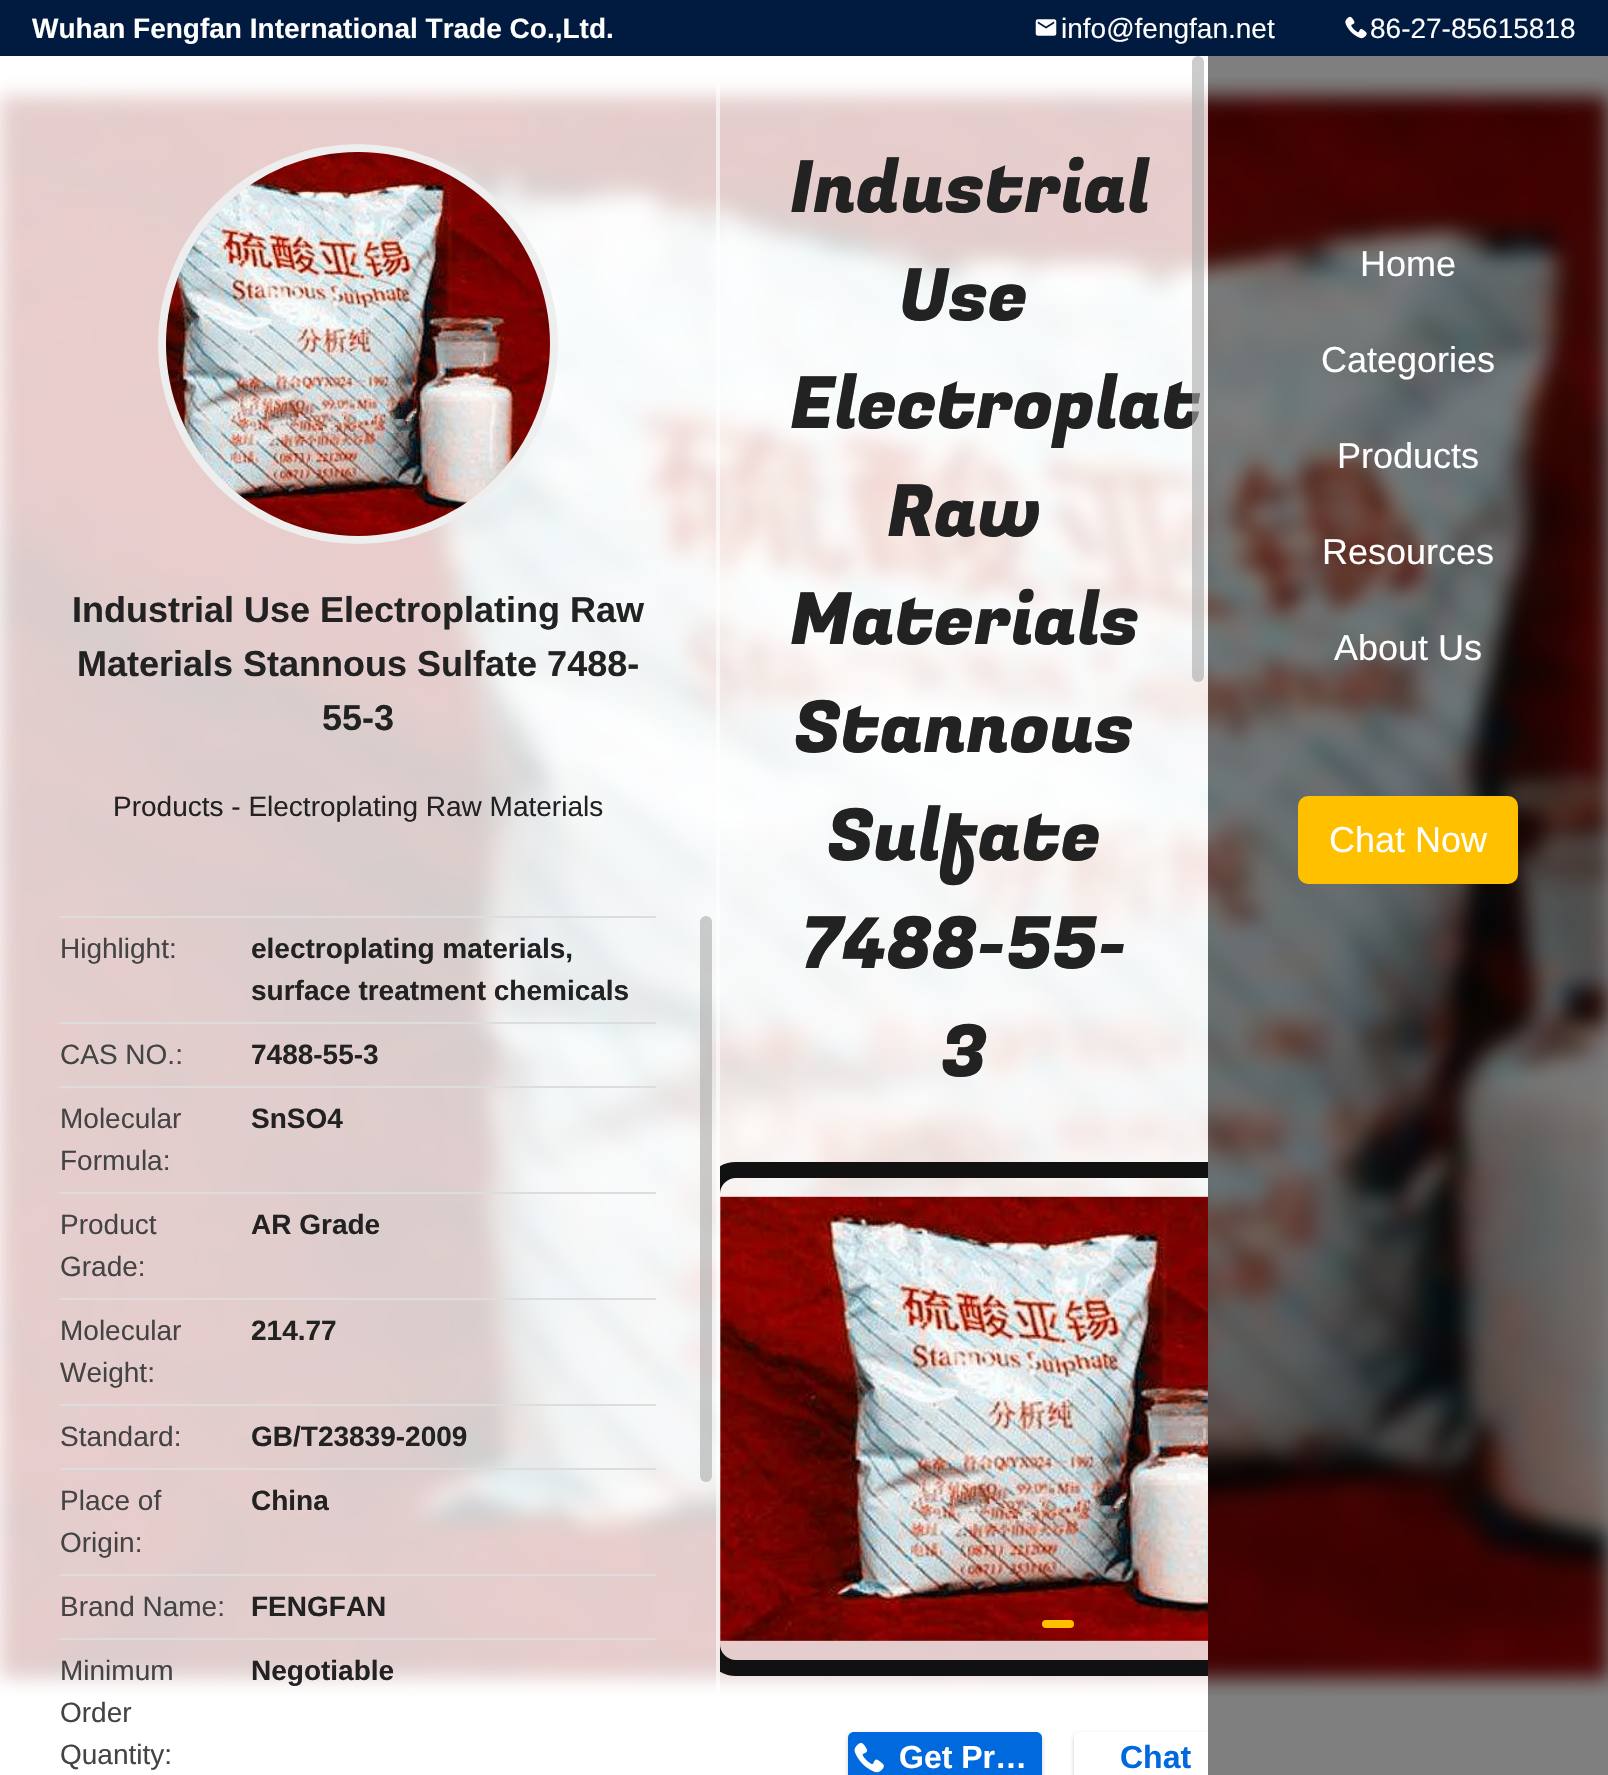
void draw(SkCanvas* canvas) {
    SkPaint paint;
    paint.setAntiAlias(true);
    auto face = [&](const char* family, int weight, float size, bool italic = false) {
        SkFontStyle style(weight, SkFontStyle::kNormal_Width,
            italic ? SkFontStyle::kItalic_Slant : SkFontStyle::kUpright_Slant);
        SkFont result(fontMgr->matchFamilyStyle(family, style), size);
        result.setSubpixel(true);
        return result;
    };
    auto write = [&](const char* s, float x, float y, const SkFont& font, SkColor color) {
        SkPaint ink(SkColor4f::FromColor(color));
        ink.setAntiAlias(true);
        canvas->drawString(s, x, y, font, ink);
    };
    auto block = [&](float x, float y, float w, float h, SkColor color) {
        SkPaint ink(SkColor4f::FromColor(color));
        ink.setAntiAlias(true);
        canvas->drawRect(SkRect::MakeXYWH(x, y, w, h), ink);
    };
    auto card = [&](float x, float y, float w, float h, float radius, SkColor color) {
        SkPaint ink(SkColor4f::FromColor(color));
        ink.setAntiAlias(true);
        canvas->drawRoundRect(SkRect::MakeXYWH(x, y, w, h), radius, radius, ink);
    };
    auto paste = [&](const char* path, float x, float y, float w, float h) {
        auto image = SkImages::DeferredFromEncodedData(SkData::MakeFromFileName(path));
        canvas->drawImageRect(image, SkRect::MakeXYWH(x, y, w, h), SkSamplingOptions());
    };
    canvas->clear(SK_ColorWHITE);
    block(0, 0, 1608, 56, SkColorSetRGB(0, 27, 63));
    auto kFont1 = face("Liberation Sans", 700, 28);
    write("Wuhan Fengfan International Trade Co.,Ltd.", 32, 38, kFont1, SK_ColorWHITE);
    paste("pic1.png", 1035, 19, 22, 17);
    auto kFont2 = face("Liberation Sans", 400, 28);
    write("info@fengfan.net", 1061, 38, kFont2, SK_ColorWHITE);
    paste("pic2.png", 1345, 16, 22, 23);
    write("86-27-85615818", 1370, 38, kFont2, SK_ColorWHITE);
    paste("pic3.png", 0, 77, 1608, 1620);
    block(0, 77, 720, 1620, SkColorSetARGB(204, 255, 255, 255));
    block(716, 83, 4, 1608, SkColorSetARGB(153, 255, 255, 255));
    paint.setStyle(SkPaint::kStroke_Style);
    paint.setStrokeWidth(8);
    paint.setColor(SkColorSetRGB(238, 238, 238));
    canvas->drawCircle(358, 344, 196, paint);
    paste("pic4.png", 166, 152, 384, 384);
    auto kFont3 = face("Liberation Sans", 700, 36);
    write("Industrial Use Electroplating Raw", 72, 622, kFont3, SkColorSetRGB(34, 34, 34));
    write("Materials Stannous Sulfate 7488-", 77, 676, kFont3, SkColorSetRGB(34, 34, 34));
    write("55-3", 322, 730, kFont3, SkColorSetRGB(34, 34, 34));
    write("Products - Electroplating Raw Materials", 113, 816, kFont2, SkColorSetRGB(34, 34, 34));
    block(60, 916, 596, 2, SkColorSetRGB(221, 221, 221));
    write("Highlight:", 60, 958, kFont2, SkColorSetRGB(68, 68, 68));
    write("electroplating materials,", 251, 958, kFont1, SkColorSetRGB(34, 34, 34));
    write("surface treatment chemicals", 251, 1000, kFont1, SkColorSetRGB(34, 34, 34));
    block(60, 1022, 596, 2, SkColorSetRGB(221, 221, 221));
    write("CAS NO.:", 60, 1064, kFont2, SkColorSetRGB(68, 68, 68));
    write("7488-55-3", 251, 1064, kFont1, SkColorSetRGB(34, 34, 34));
    block(60, 1086, 596, 2, SkColorSetRGB(221, 221, 221));
    write("Molecular", 60, 1128, kFont2, SkColorSetRGB(68, 68, 68));
    write("Formula:", 60, 1170, kFont2, SkColorSetRGB(68, 68, 68));
    write("SnSO4", 251, 1128, kFont1, SkColorSetRGB(34, 34, 34));
    block(60, 1192, 596, 2, SkColorSetRGB(221, 221, 221));
    write("Product", 60, 1234, kFont2, SkColorSetRGB(68, 68, 68));
    write("Grade:", 60, 1276, kFont2, SkColorSetRGB(68, 68, 68));
    write("AR Grade", 251, 1234, kFont1, SkColorSetRGB(34, 34, 34));
    block(60, 1298, 596, 2, SkColorSetRGB(221, 221, 221));
    write("Molecular", 60, 1340, kFont2, SkColorSetRGB(68, 68, 68));
    write("Weight:", 60, 1382, kFont2, SkColorSetRGB(68, 68, 68));
    write("214.77", 251, 1340, kFont1, SkColorSetRGB(34, 34, 34));
    block(60, 1404, 596, 2, SkColorSetRGB(221, 221, 221));
    write("Standard:", 60, 1446, kFont2, SkColorSetRGB(68, 68, 68));
    write("GB/T23839-2009", 251, 1446, kFont1, SkColorSetRGB(34, 34, 34));
    block(60, 1468, 596, 2, SkColorSetRGB(221, 221, 221));
    write("Place of", 60, 1510, kFont2, SkColorSetRGB(68, 68, 68));
    write("Origin:", 60, 1552, kFont2, SkColorSetRGB(68, 68, 68));
    write("China", 251, 1510, kFont1, SkColorSetRGB(34, 34, 34));
    block(60, 1574, 596, 2, SkColorSetRGB(221, 221, 221));
    write("Brand Name:", 60, 1616, kFont2, SkColorSetRGB(68, 68, 68));
    write("FENGFAN", 251, 1616, kFont1, SkColorSetRGB(34, 34, 34));
    block(60, 1638, 596, 2, SkColorSetRGB(221, 221, 221));
    write("Minimum", 60, 1680, kFont2, SkColorSetRGB(68, 68, 68));
    write("Order", 60, 1722, kFont2, SkColorSetRGB(68, 68, 68));
    write("Quantity:", 60, 1764, kFont2, SkColorSetRGB(68, 68, 68));
    write("Negotiable", 251, 1680, kFont1, SkColorSetRGB(34, 34, 34));
    card(700, 916, 12, 566, 6, SkColorSetARGB(153, 170, 170, 170));
    block(720, 77, 488, 1620, SkColorSetARGB(204, 255, 255, 255));
    auto kFont4 = face("Fugaz One", 400, 72);
    write("Electroplat", 790, 428, kFont4, SkColorSetRGB(34, 34, 34));
    card(1192, 56, 12, 626, 6, SkColorSetARGB(153, 170, 170, 170));
    write("Industrial", 790, 212, kFont4, SkColorSetRGB(34, 34, 34));
    write("Use", 899, 320, kFont4, SkColorSetRGB(34, 34, 34));
    write("Raw", 887, 536, kFont4, SkColorSetRGB(34, 34, 34));
    write("Materials", 790, 644, kFont4, SkColorSetRGB(34, 34, 34));
    write("Stannous", 794, 752, kFont4, SkColorSetRGB(34, 34, 34));
    write("Sulfate", 827, 860, kFont4, SkColorSetRGB(34, 34, 34));
    write("7488-55-", 801, 968, kFont4, SkColorSetRGB(34, 34, 34));
    write("3", 941, 1076, kFont4, SkColorSetRGB(34, 34, 34));
    block(1208, 56, 400, 1719, SkColorSetARGB(128, 0, 0, 0));
    canvas->save();
    canvas->clipRect(SkRect::MakeXYWH(720, 56, 488, 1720));
    paint.setStrokeWidth(16);
    paint.setColor(SkColorSetRGB(17, 17, 17));
    canvas->drawRoundRect(SkRect::MakeXYWH(712, 1170, 692, 498), 24, 24, paint);
    canvas->restore();
    paste("pic5.png", 720, 1196, 488, 445);
    card(1042, 1620, 32, 8, 4, SkColorSetRGB(255, 192, 0));
    paint.setStyle(SkPaint::kFill_Style);
    paint.setColor(SkColorSetARGB(51, 0, 0, 0));
    paint.setMaskFilter(SkMaskFilter::MakeBlur(kNormal_SkBlurStyle, 2));
    canvas->drawRoundRect(SkRect::MakeXYWH(848, 1734, 194, 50), 6, 6, paint);
    paint.setMaskFilter(nullptr);
    paint.setColor(SkColorSetRGB(0, 105, 222));
    canvas->drawPath(SkPathBuilder().moveTo(854, 1732).lineTo(1036, 1732).cubicTo(1039.5f, 1732, 1042, 1734.5f, 1042, 1738).lineTo(1042, 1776).lineTo(848, 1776).lineTo(848, 1738).cubicTo(848, 1734.5f, 850.5f, 1732, 854, 1732).close().detach(), paint);
    paste("pic6.png", 854, 1743, 30, 30);
    auto kFont5 = face("Liberation Sans", 700, 32);
    write("Get Pr…", 899, 1768, kFont5, SK_ColorWHITE);
    canvas->save();
    canvas->clipRect(SkRect::MakeXYWH(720, 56, 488, 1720));
    paint.setColor(SkColorSetARGB(51, 0, 0, 0));
    paint.setMaskFilter(SkMaskFilter::MakeBlur(kNormal_SkBlurStyle, 2));
    canvas->drawRoundRect(SkRect::MakeXYWH(1074, 1734, 192, 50), 6, 6, paint);
    paint.setMaskFilter(nullptr);
    canvas->restore();
    paint.setColor(SK_ColorWHITE);
    canvas->drawPath(SkPathBuilder().moveTo(1080, 1732).lineTo(1208, 1732).lineTo(1208, 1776).lineTo(1074, 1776).lineTo(1074, 1738).cubicTo(1074, 1734.5f, 1076.5f, 1732, 1080, 1732).close().detach(), paint);
    write("Chat", 1120, 1768, kFont5, SkColorSetRGB(0, 105, 222));
    auto kFont6 = face("Liberation Sans", 400, 36);
    write("Home", 1360, 276, kFont6, SK_ColorWHITE);
    write("Categories", 1321, 372, kFont6, SK_ColorWHITE);
    write("Products", 1337, 468, kFont6, SK_ColorWHITE);
    write("Resources", 1322, 564, kFont6, SK_ColorWHITE);
    write("About Us", 1334, 660, kFont6, SK_ColorWHITE);
    card(1298, 796, 220, 88, 10, SkColorSetRGB(255, 192, 0));
    write("Chat Now", 1329, 852, kFont6, SK_ColorWHITE);
}
